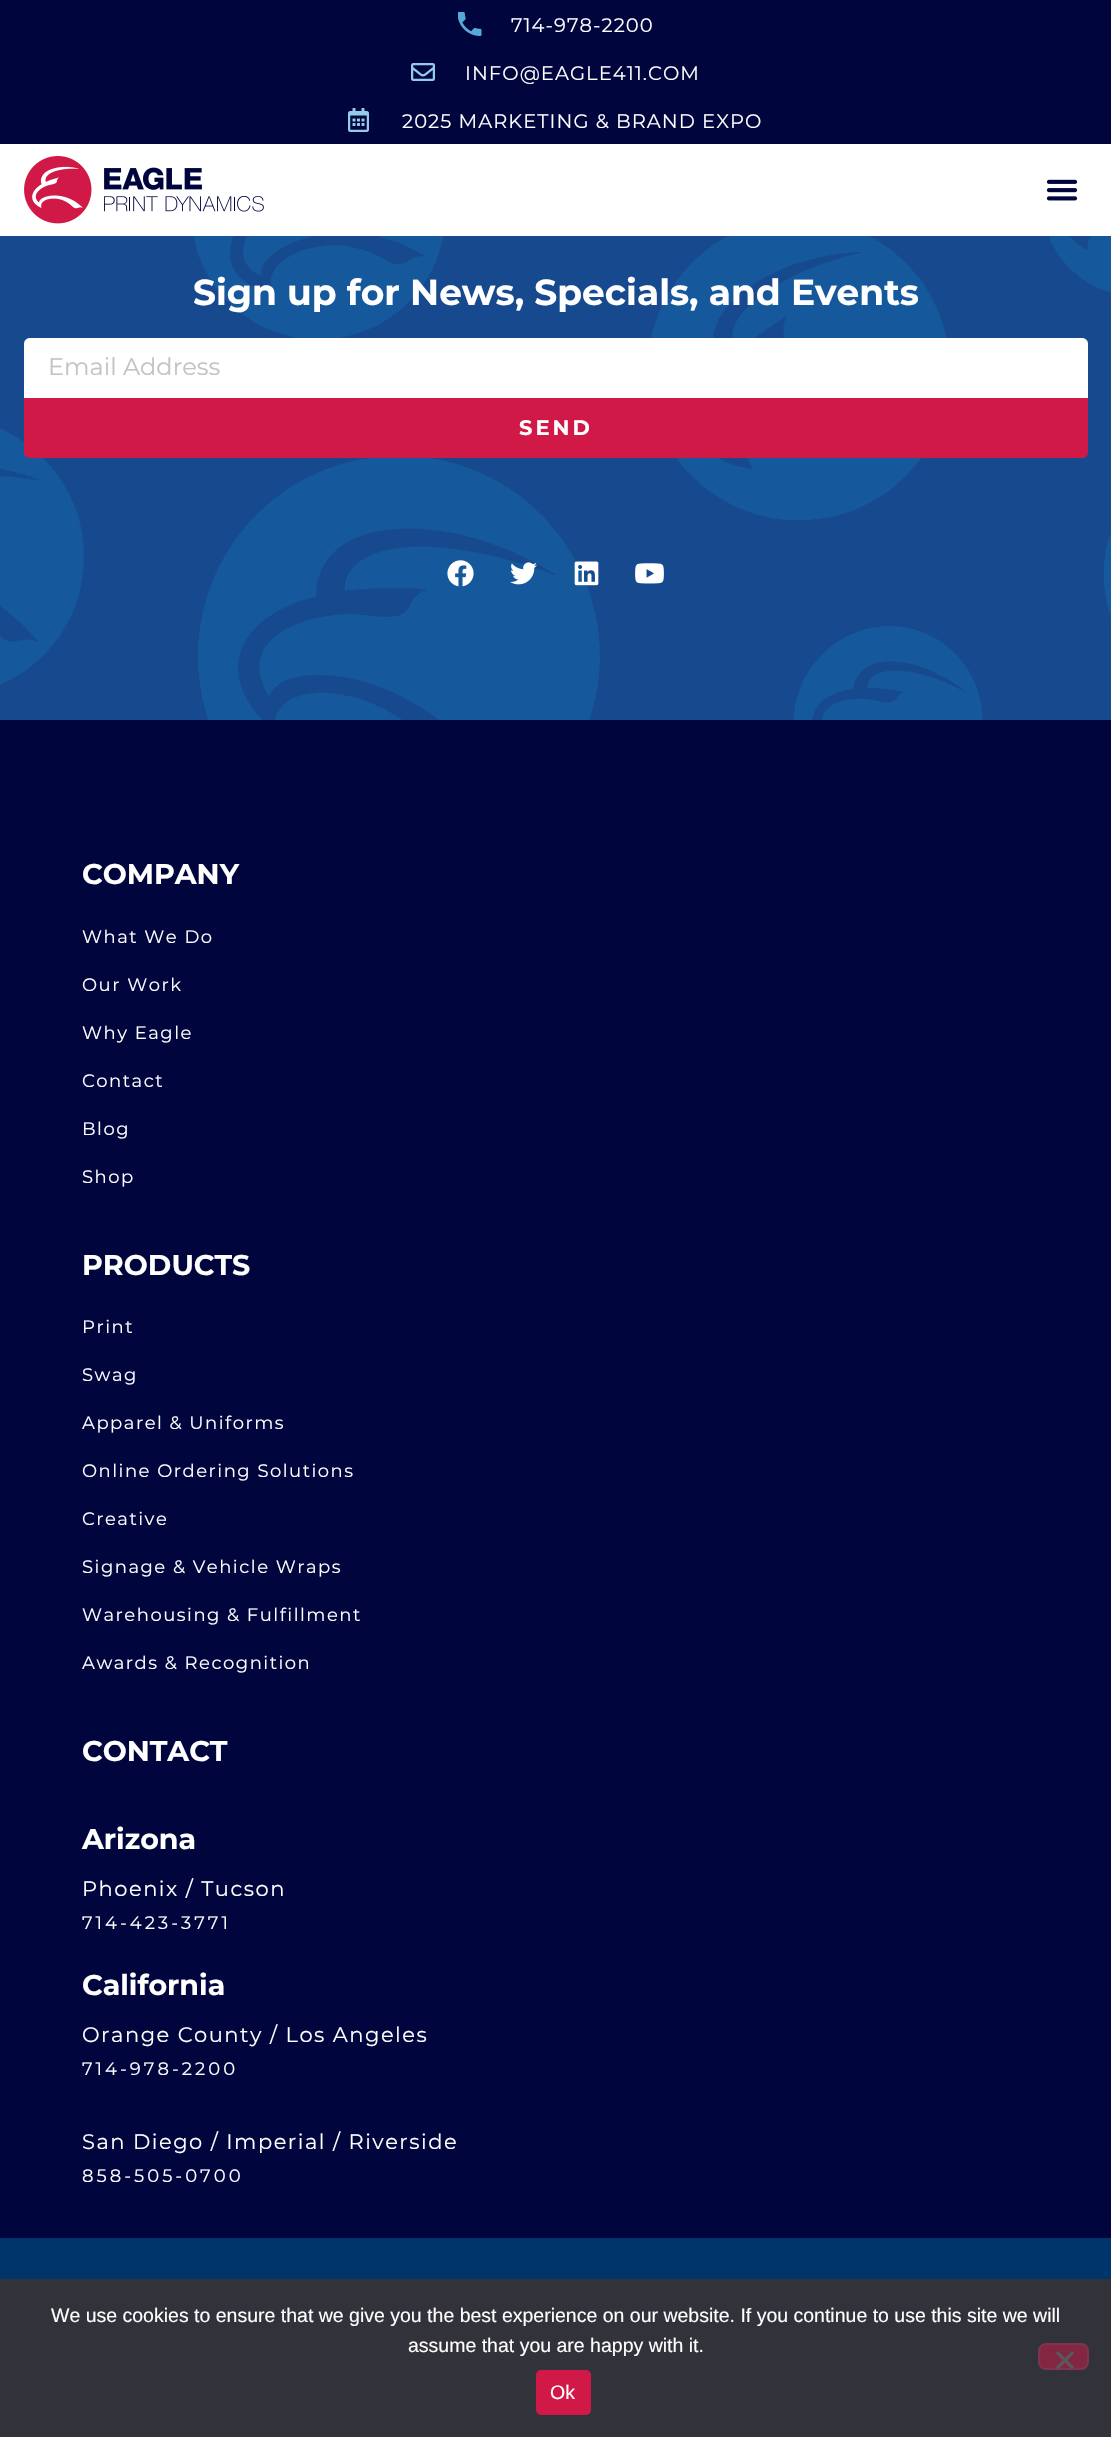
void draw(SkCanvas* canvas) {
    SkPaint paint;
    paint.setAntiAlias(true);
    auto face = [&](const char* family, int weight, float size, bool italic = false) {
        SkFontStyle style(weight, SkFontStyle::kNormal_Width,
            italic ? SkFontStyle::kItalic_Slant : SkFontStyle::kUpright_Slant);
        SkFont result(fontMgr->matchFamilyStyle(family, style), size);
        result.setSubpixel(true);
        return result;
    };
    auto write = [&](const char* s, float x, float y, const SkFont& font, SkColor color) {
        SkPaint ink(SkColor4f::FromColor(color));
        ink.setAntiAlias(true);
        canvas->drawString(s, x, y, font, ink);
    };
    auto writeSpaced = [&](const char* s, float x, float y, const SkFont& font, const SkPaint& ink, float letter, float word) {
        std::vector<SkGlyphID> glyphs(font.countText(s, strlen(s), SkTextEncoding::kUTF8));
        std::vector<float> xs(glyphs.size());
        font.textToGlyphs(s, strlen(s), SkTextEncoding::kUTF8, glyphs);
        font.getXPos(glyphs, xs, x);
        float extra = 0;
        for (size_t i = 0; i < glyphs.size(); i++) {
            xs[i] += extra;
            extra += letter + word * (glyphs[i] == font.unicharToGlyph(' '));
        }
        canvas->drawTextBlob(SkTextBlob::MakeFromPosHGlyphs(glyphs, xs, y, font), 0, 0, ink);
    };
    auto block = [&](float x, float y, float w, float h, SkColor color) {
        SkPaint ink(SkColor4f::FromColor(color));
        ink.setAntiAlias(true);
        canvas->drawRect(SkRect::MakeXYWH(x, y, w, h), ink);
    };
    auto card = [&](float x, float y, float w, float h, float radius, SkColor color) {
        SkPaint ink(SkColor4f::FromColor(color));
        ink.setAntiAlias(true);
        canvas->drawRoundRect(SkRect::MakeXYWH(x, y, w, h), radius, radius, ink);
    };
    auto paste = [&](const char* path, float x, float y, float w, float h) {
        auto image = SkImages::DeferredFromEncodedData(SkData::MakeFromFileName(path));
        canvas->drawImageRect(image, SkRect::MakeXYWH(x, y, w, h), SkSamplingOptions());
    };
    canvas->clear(SK_ColorWHITE);
    block(0, 0, 1111, 144, SkColorSetRGB(0, 5, 62));
    paste("pic1.png", 458, 12, 24, 24);
    auto kFont1 = face("Montserrat", 400, 19.5f);
    paint.setColor(SK_ColorWHITE);
    writeSpaced("714-978-2200", 511, 32, kFont1, paint, 1.05f, 0);
    paste("pic2.png", 411, 63, 24, 18);
    writeSpaced("INFO@EAGLE411.COM", 465, 80, kFont1, paint, 1.05f, 0);
    paste("pic3.png", 348, 108, 21, 24);
    writeSpaced("2025 MARKETING & BRAND EXPO", 402, 128, kFont1, paint, 1.05f, 0);
    paste("pic4.png", 24, 156, 240, 68);
    paste("pic5.png", 1046, 179, 32, 22);
    paste("pic6.png", 0, 236, 1111, 484);
    auto kFont2 = face("Montserrat", 700, 36);
    write("Sign up for News, Specials, and Events", 193, 305, kFont2, SK_ColorWHITE);
    canvas->drawPath(SkPathBuilder().moveTo(30, 338).lineTo(1082, 338).cubicTo(1085.5f, 338, 1088, 340.5f, 1088, 344).lineTo(1088, 398).lineTo(24, 398).lineTo(24, 344).cubicTo(24, 340.5f, 26.5f, 338, 30, 338).close().detach(), paint);
    auto kFont3 = face("Montserrat", 400, 24);
    write("Email Address", 48, 375, kFont3, SkColorSetRGB(195, 195, 195));
    paint.setColor(SkColorSetRGB(209, 25, 71));
    canvas->drawPath(SkPathBuilder().moveTo(24, 398).lineTo(1088, 398).lineTo(1088, 452).cubicTo(1088, 455.5f, 1085.5f, 458, 1082, 458).lineTo(30, 458).cubicTo(26.5f, 458, 24, 455.5f, 24, 452).close().detach(), paint);
    auto kFont4 = face("Montserrat", 700, 21);
    paint.setColor(SK_ColorWHITE);
    writeSpaced("SEND", 519, 435, kFont4, paint, 3, 0);
    paste("pic7.png", 447, 560, 27, 27);
    paste("pic8.png", 510, 562, 27, 23);
    paste("pic9.png", 574, 561, 25, 25);
    paste("pic10.png", 635, 563, 29, 21);
    block(0, 720, 1111, 1518, SkColorSetRGB(0, 5, 62));
    auto kFont5 = face("Montserrat", 700, 28.5f);
    write("COMPANY", 82, 884, kFont5, SK_ColorWHITE);
    auto kFont6 = face("Montserrat", 400, 18);
    writeSpaced("What We Do", 82, 943, kFont6, paint, 1.5f, 0);
    writeSpaced("Our Work", 82, 991, kFont6, paint, 1.5f, 0);
    writeSpaced("Why Eagle", 82, 1039, kFont6, paint, 1.5f, 0);
    writeSpaced("Contact", 82, 1087, kFont6, paint, 1.5f, 0);
    writeSpaced("Blog", 82, 1135, kFont6, paint, 1.5f, 0);
    writeSpaced("Shop", 82, 1183, kFont6, paint, 1.5f, 0);
    write("PRODUCTS", 82, 1275, kFont5, SK_ColorWHITE);
    writeSpaced("Print", 82, 1333, kFont6, paint, 1.5f, 0);
    writeSpaced("Swag", 82, 1381, kFont6, paint, 1.5f, 0);
    writeSpaced("Apparel & Uniforms", 82, 1429, kFont6, paint, 1.5f, 0);
    writeSpaced("Online Ordering Solutions", 82, 1477, kFont6, paint, 1.5f, 0);
    writeSpaced("Creative", 82, 1525, kFont6, paint, 1.5f, 0);
    writeSpaced("Signage & Vehicle Wraps", 82, 1573, kFont6, paint, 1.5f, 0);
    writeSpaced("Warehousing & Fulfillment", 82, 1621, kFont6, paint, 1.5f, 0);
    writeSpaced("Awards & Recognition", 82, 1669, kFont6, paint, 1.5f, 0);
    write("CONTACT", 82, 1761, kFont5, SK_ColorWHITE);
    write("Arizona", 82, 1849, kFont5, SK_ColorWHITE);
    auto kFont7 = face("Montserrat", 400, 21);
    writeSpaced("Phoenix / Tucson", 82, 1896, kFont7, paint, 1.5f, 0);
    writeSpaced("714-423-3771", 82, 1929, kFont6, paint, 3, 0);
    write("California", 82, 1995, kFont5, SK_ColorWHITE);
    writeSpaced("Orange County / Los Angeles", 82, 2042, kFont7, paint, 1.5f, 0);
    writeSpaced("714-978-2200", 82, 2075, kFont6, paint, 3, 0);
    writeSpaced("San Diego / Imperial / Riverside", 82, 2149, kFont7, paint, 1.5f, 0);
    writeSpaced("858-505-0700", 82, 2182, kFont6, paint, 3, 0);
    block(0, 2238, 1111, 41, SkColorSetRGB(0, 53, 108));
    block(0, 2279, 1111, 158, SkColorSetRGB(50, 50, 58));
    auto kFont8 = face("Liberation Sans", 400, 19.5f);
    write("We use cookies to ensure that we give you the best experience on our website. If you continue to use this site we will", 51, 2322, kFont8, SK_ColorWHITE);
    write("assume that you are happy with it.", 408, 2352, kFont8, SK_ColorWHITE);
    paint.setColor(SkColorSetRGB(130, 38, 65));
    canvas->drawRoundRect(SkRect::MakeXYWH(1039, 2344, 49, 25), 7, 7, paint);
    paint.setStyle(SkPaint::kStroke_Style);
    paint.setStrokeWidth(2);
    paint.setColor(SkColorSetRGB(127, 51, 80));
    canvas->drawRoundRect(SkRect::MakeXYWH(1039, 2344, 49, 25), 7, 7, paint);
    paint.setStyle(SkPaint::kFill_Style);
    paint.setColor(SkColorSetRGB(89, 89, 93));
    canvas->drawPath(SkPathBuilder().moveTo(1072, 2351).lineTo(1074, 2353.5f).lineTo(1058, 2369.5f).lineTo(1056, 2367).close().detach(), paint);
    canvas->drawPath(SkPathBuilder().moveTo(1056, 2353.5f).lineTo(1058, 2351).lineTo(1074, 2367).lineTo(1072, 2369.5f).close().detach(), paint);
    card(536, 2370, 55, 45, 5, SkColorSetRGB(209, 25, 71));
    write("Ok", 550, 2399, kFont8, SK_ColorWHITE);
}
